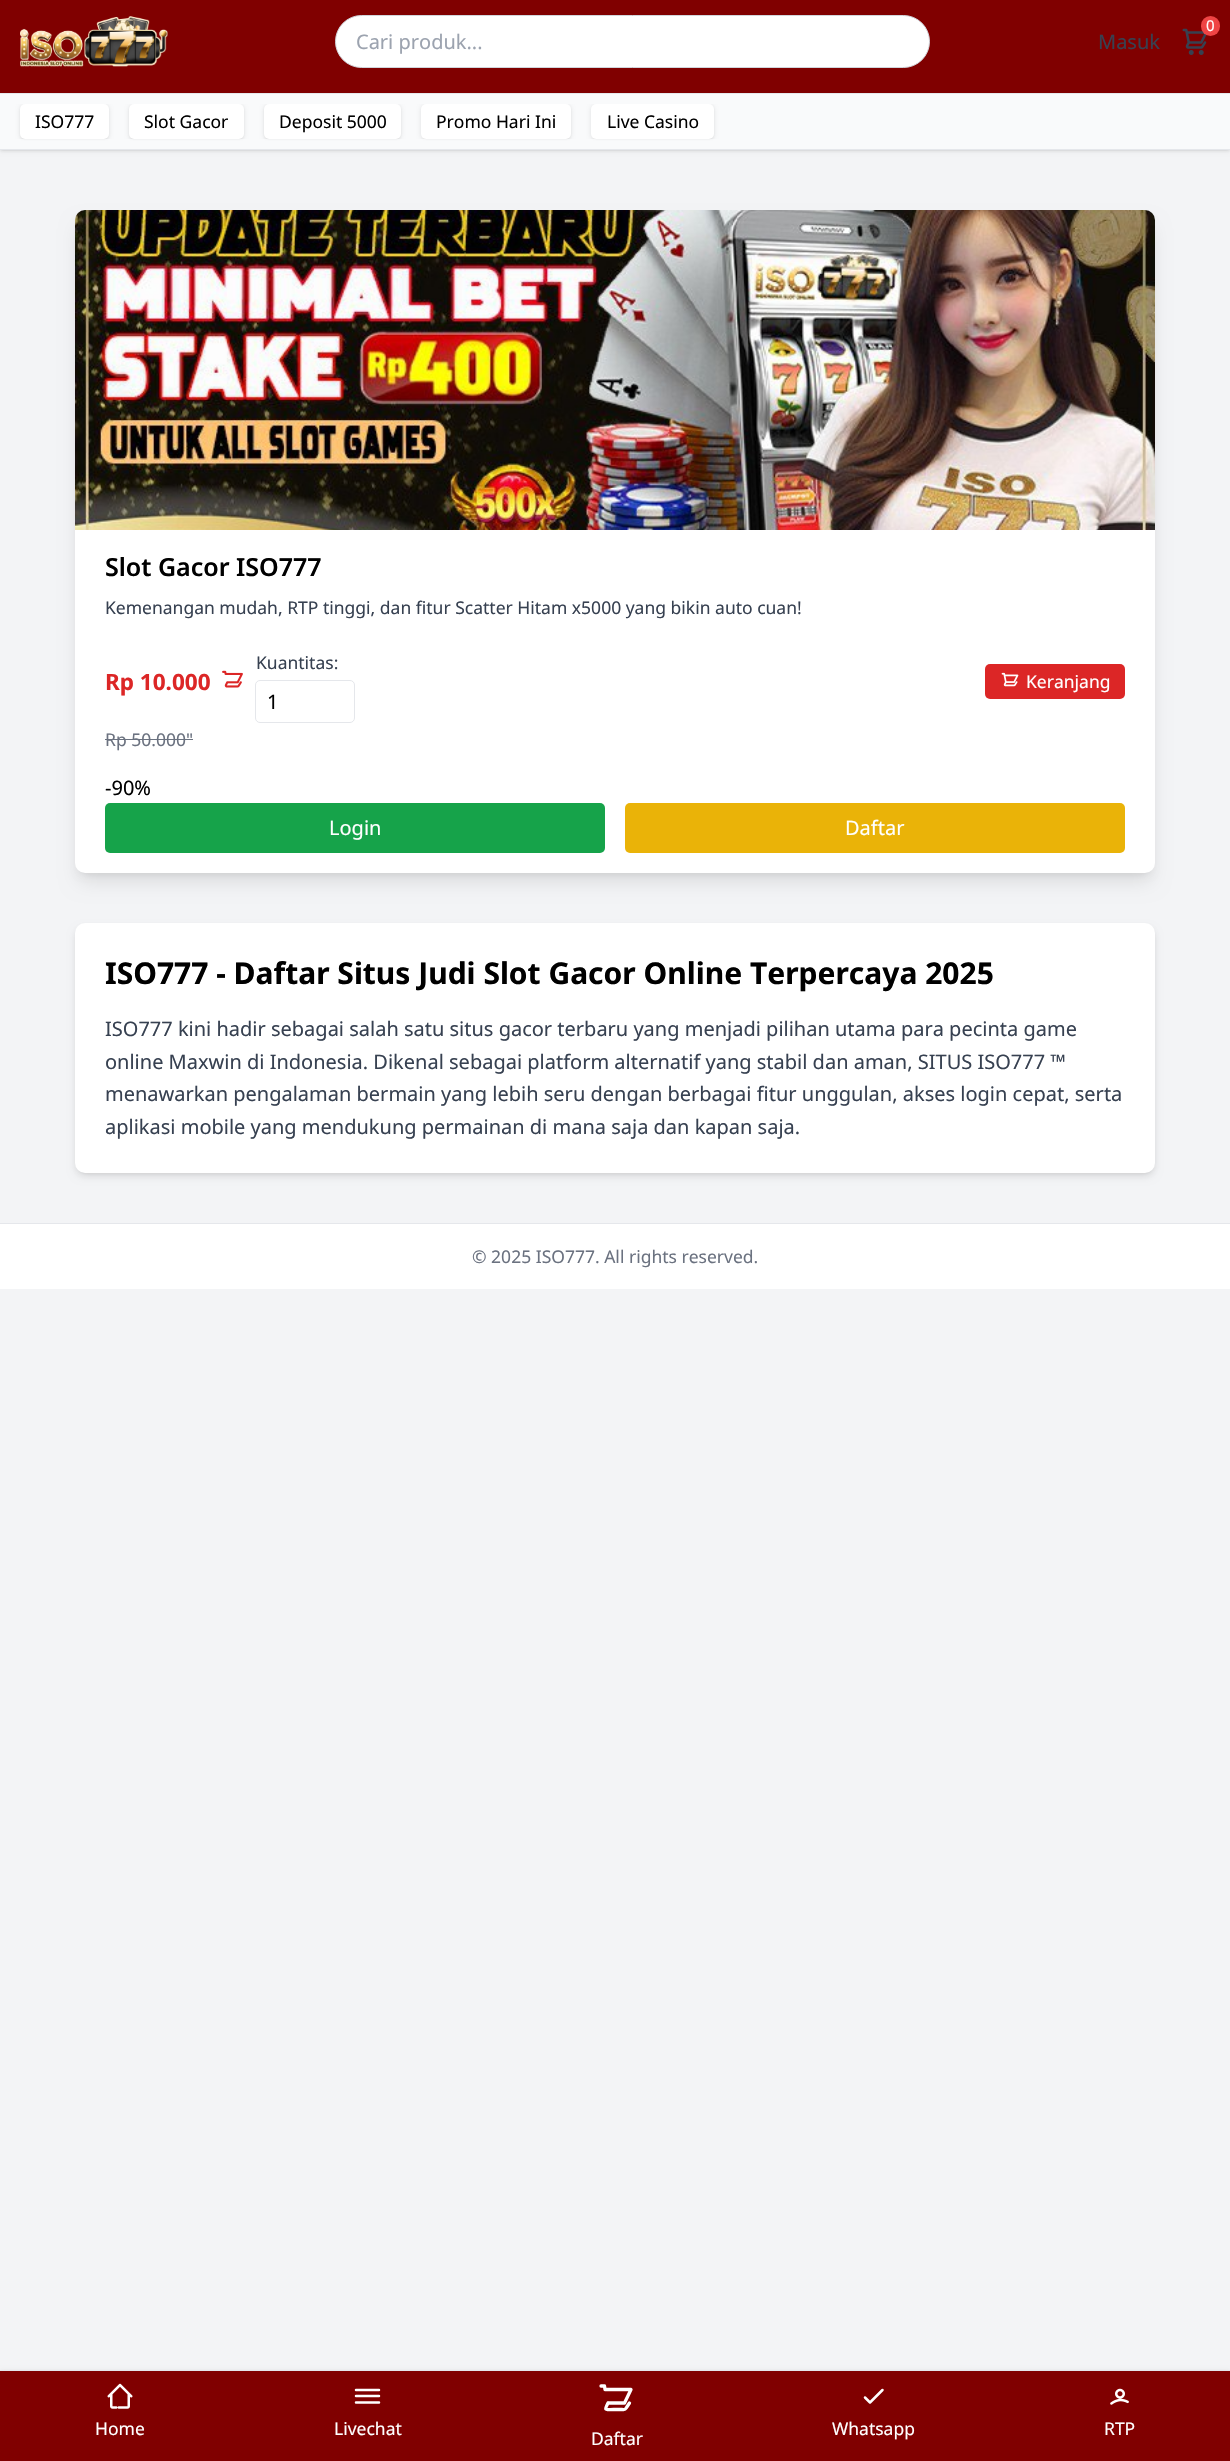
void draw(SkCanvas* canvas) {
    SkPaint paint;
    paint.setAntiAlias(true);
    auto face = [&](const char* family, int weight, float size, bool italic = false) {
        SkFontStyle style(weight, SkFontStyle::kNormal_Width,
            italic ? SkFontStyle::kItalic_Slant : SkFontStyle::kUpright_Slant);
        SkFont result(fontMgr->matchFamilyStyle(family, style), size);
        result.setSubpixel(true);
        return result;
    };
    auto write = [&](const char* s, float x, float y, const SkFont& font, SkColor color) {
        SkPaint ink(SkColor4f::FromColor(color));
        ink.setAntiAlias(true);
        canvas->drawString(s, x, y, font, ink);
    };
    auto block = [&](float x, float y, float w, float h, SkColor color) {
        SkPaint ink(SkColor4f::FromColor(color));
        ink.setAntiAlias(true);
        canvas->drawRect(SkRect::MakeXYWH(x, y, w, h), ink);
    };
    auto card = [&](float x, float y, float w, float h, float radius, SkColor color) {
        SkPaint ink(SkColor4f::FromColor(color));
        ink.setAntiAlias(true);
        canvas->drawRoundRect(SkRect::MakeXYWH(x, y, w, h), radius, radius, ink);
    };
    auto paste = [&](const char* path, float x, float y, float w, float h) {
        auto image = SkImages::DeferredFromEncodedData(SkData::MakeFromFileName(path));
        canvas->drawImageRect(image, SkRect::MakeXYWH(x, y, w, h), SkSamplingOptions());
    };
    canvas->clear(SkColorSetRGB(243, 244, 246));
    paint.setColor(SkColorSetARGB(26, 0, 0, 0));
    paint.setMaskFilter(SkMaskFilter::MakeBlur(kNormal_SkBlurStyle, 1));
    canvas->drawRect(SkRect::MakeXYWH(1, 3, 1228, 147), paint);
    paint.setMaskFilter(nullptr);
    paint.setMaskFilter(SkMaskFilter::MakeBlur(kNormal_SkBlurStyle, 2));
    canvas->drawRect(SkRect::MakeXYWH(0, 1, 1230, 150), paint);
    paint.setMaskFilter(nullptr);
    block(0, 0, 1230, 93, SkColorSetRGB(128, 0, 0));
    paste("pic1.png", 20, 16, 148, 51);
    paint.setColor(SK_ColorWHITE);
    canvas->drawRoundRect(SkRect::MakeXYWH(335.5f, 15.5f, 594, 52), 26, 26, paint);
    paint.setStyle(SkPaint::kStroke_Style);
    paint.setStrokeWidth(1);
    paint.setColor(SkColorSetRGB(209, 213, 219));
    canvas->drawRoundRect(SkRect::MakeXYWH(335.5f, 15.5f, 594, 52), 26, 26, paint);
    auto kFont1 = face("Noto Sans", 400, 20);
    write("Cari produk...", 356, 49, kFont1, SkColorSetRGB(156, 163, 175));
    paste("pic2.png", 1182, 28, 25, 27);
    card(1201, 16, 19, 20, 9.5f, SkColorSetRGB(239, 68, 68));
    auto kFont2 = face("Noto Sans", 400, 15);
    write("0", 1206, 31, kFont2, SK_ColorWHITE);
    write("Masuk", 1098, 49, kFont1, SkColorSetRGB(55, 65, 81));
    block(0, 94, 1230, 55, SkColorSetRGB(249, 250, 251));
    block(0, 93, 1230, 1, SkColorSetRGB(229, 231, 235));
    block(0, 149, 1230, 1, SkColorSetRGB(229, 231, 235));
    paint.setStyle(SkPaint::kFill_Style);
    paint.setColor(SkColorSetARGB(26, 0, 0, 0));
    paint.setMaskFilter(SkMaskFilter::MakeBlur(kNormal_SkBlurStyle, 1));
    canvas->drawRoundRect(SkRect::MakeXYWH(21, 106, 87, 33), 4, 4, paint);
    paint.setMaskFilter(nullptr);
    canvas->save();
    canvas->clipRect(SkRect::MakeXYWH(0, 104, 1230, 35));
    paint.setMaskFilter(SkMaskFilter::MakeBlur(kNormal_SkBlurStyle, 2));
    canvas->drawRoundRect(SkRect::MakeXYWH(20, 105, 89, 35), 5, 5, paint);
    paint.setMaskFilter(nullptr);
    canvas->restore();
    card(20, 104, 89, 35, 5, SK_ColorWHITE);
    auto kFont3 = face("Noto Sans", 400, 17.5f);
    write("ISO777", 35, 128, kFont3, SK_ColorBLACK);
    paint.setMaskFilter(SkMaskFilter::MakeBlur(kNormal_SkBlurStyle, 1));
    canvas->drawRoundRect(SkRect::MakeXYWH(130, 106, 113, 33), 4, 4, paint);
    paint.setMaskFilter(nullptr);
    canvas->save();
    canvas->clipRect(SkRect::MakeXYWH(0, 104, 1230, 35));
    paint.setMaskFilter(SkMaskFilter::MakeBlur(kNormal_SkBlurStyle, 2));
    canvas->drawRoundRect(SkRect::MakeXYWH(129, 105, 115, 35), 5, 5, paint);
    paint.setMaskFilter(nullptr);
    canvas->restore();
    card(129, 104, 115, 35, 5, SK_ColorWHITE);
    write("Slot Gacor", 144, 128, kFont3, SK_ColorBLACK);
    paint.setMaskFilter(SkMaskFilter::MakeBlur(kNormal_SkBlurStyle, 1));
    canvas->drawRoundRect(SkRect::MakeXYWH(265, 106, 135, 33), 4, 4, paint);
    paint.setMaskFilter(nullptr);
    canvas->save();
    canvas->clipRect(SkRect::MakeXYWH(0, 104, 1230, 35));
    paint.setMaskFilter(SkMaskFilter::MakeBlur(kNormal_SkBlurStyle, 2));
    canvas->drawRoundRect(SkRect::MakeXYWH(264, 105, 137, 35), 5, 5, paint);
    paint.setMaskFilter(nullptr);
    canvas->restore();
    card(264, 104, 137, 35, 5, SK_ColorWHITE);
    write("Deposit 5000", 279, 128, kFont3, SK_ColorBLACK);
    paint.setMaskFilter(SkMaskFilter::MakeBlur(kNormal_SkBlurStyle, 1));
    canvas->drawRoundRect(SkRect::MakeXYWH(423, 106, 147, 33), 4, 4, paint);
    paint.setMaskFilter(nullptr);
    canvas->save();
    canvas->clipRect(SkRect::MakeXYWH(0, 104, 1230, 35));
    paint.setMaskFilter(SkMaskFilter::MakeBlur(kNormal_SkBlurStyle, 2));
    canvas->drawRoundRect(SkRect::MakeXYWH(421, 105, 150, 35), 5, 5, paint);
    paint.setMaskFilter(nullptr);
    canvas->restore();
    card(421, 104, 150, 35, 5, SK_ColorWHITE);
    write("Promo Hari Ini", 436, 128, kFont3, SK_ColorBLACK);
    paint.setMaskFilter(SkMaskFilter::MakeBlur(kNormal_SkBlurStyle, 1));
    canvas->drawRoundRect(SkRect::MakeXYWH(593, 106, 120, 33), 4, 4, paint);
    paint.setMaskFilter(nullptr);
    canvas->save();
    canvas->clipRect(SkRect::MakeXYWH(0, 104, 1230, 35));
    paint.setMaskFilter(SkMaskFilter::MakeBlur(kNormal_SkBlurStyle, 2));
    canvas->drawRoundRect(SkRect::MakeXYWH(591, 105, 123, 35), 5, 5, paint);
    paint.setMaskFilter(nullptr);
    canvas->restore();
    card(591, 104, 123, 35, 5, SK_ColorWHITE);
    write("Live Casino", 607, 128, kFont3, SK_ColorBLACK);
    paint.setMaskFilter(SkMaskFilter::MakeBlur(kNormal_SkBlurStyle, 4));
    canvas->drawRoundRect(SkRect::MakeXYWH(80, 220, 1070, 653), 5, 5, paint);
    paint.setMaskFilter(nullptr);
    paint.setMaskFilter(SkMaskFilter::MakeBlur(kNormal_SkBlurStyle, 9.5f));
    canvas->drawRoundRect(SkRect::MakeXYWH(79, 226, 1072, 655), 6, 6, paint);
    paint.setMaskFilter(nullptr);
    card(75, 210, 1080, 663, 10, SK_ColorWHITE);
    paste("pic3.png", 75, 210, 1080, 320);
    auto kFont4 = face("Noto Sans", 600, 25);
    write("Slot Gacor ISO777", 105, 576, kFont4, SK_ColorBLACK);
    write("Kemenangan mudah, RTP tinggi, dan fitur Scatter Hitam x5000 yang bikin auto cuan!", 105, 614, kFont3, SkColorSetRGB(55, 65, 81));
    auto kFont5 = face("Noto Sans", 700, 22.5f);
    write("Rp 10.000", 105, 690, kFont5, SkColorSetRGB(220, 38, 38));
    paste("pic4.png", 222, 670, 21, 18);
    write("Kuantitas:", 256, 669, kFont3, SkColorSetRGB(55, 65, 81));
    paint.setStyle(SkPaint::kStroke_Style);
    paint.setColor(SkColorSetRGB(229, 231, 235));
    canvas->drawRoundRect(SkRect::MakeXYWH(255.5f, 680.5f, 99, 42), 4.5f, 4.5f, paint);
    write("1", 267, 709, kFont1, SK_ColorBLACK);
    card(985, 664, 140, 35, 5, SkColorSetRGB(220, 38, 38));
    paste("pic5.png", 1001, 672, 18, 15);
    write("Keranjang", 1026, 688, kFont3, SK_ColorWHITE);
    write("Rp 50.000\"", 105, 746, kFont3, SkColorSetRGB(107, 114, 128));
    block(105, 739, 88, 1, SkColorSetRGB(107, 114, 128));
    write("-90%", 105, 795, kFont1, SK_ColorBLACK);
    card(105, 803, 500, 50, 5, SkColorSetRGB(22, 163, 74));
    write("Login", 329, 835, kFont1, SK_ColorWHITE);
    card(625, 803, 500, 50, 5, SkColorSetRGB(234, 179, 8));
    write("Daftar", 845, 835, kFont1, SK_ColorWHITE);
    paint.setStyle(SkPaint::kFill_Style);
    paint.setColor(SkColorSetARGB(26, 0, 0, 0));
    paint.setMaskFilter(SkMaskFilter::MakeBlur(kNormal_SkBlurStyle, 2.5f));
    canvas->drawRoundRect(SkRect::MakeXYWH(78, 928, 1075, 245), 8, 8, paint);
    paint.setMaskFilter(nullptr);
    paint.setMaskFilter(SkMaskFilter::MakeBlur(kNormal_SkBlurStyle, 4));
    canvas->drawRoundRect(SkRect::MakeXYWH(76, 929, 1078, 247), 9, 9, paint);
    paint.setMaskFilter(nullptr);
    card(75, 923, 1080, 250, 10, SK_ColorWHITE);
    auto kFont6 = face("Noto Sans", 700, 30);
    write("ISO777 - Daftar Situs Judi Slot Gacor Online Terpercaya 2025", 105, 984, kFont6, SK_ColorBLACK);
    write("ISO777 kini hadir sebagai salah satu situs gacor terbaru yang menjadi pilihan utama para pecinta game", 105, 1036, kFont1, SkColorSetRGB(55, 65, 81));
    write("online Maxwin di Indonesia. Dikenal sebagai platform alternatif yang stabil dan aman, SITUS ISO777 ™", 105, 1069, kFont1, SkColorSetRGB(55, 65, 81));
    write("menawarkan pengalaman bermain yang lebih seru dengan berbagai fitur unggulan, akses login cepat, serta", 105, 1101, kFont1, SkColorSetRGB(55, 65, 81));
    write("aplikasi mobile yang mendukung permainan di mana saja dan kapan saja.", 105, 1134, kFont1, SkColorSetRGB(55, 65, 81));
    block(0, 1224, 1230, 65, SK_ColorWHITE);
    block(0, 1223, 1230, 1, SkColorSetRGB(229, 231, 235));
    write("© 2025 ISO777. All rights reserved.", 472, 1263, kFont3, SkColorSetRGB(107, 114, 128));
    paint.setMaskFilter(SkMaskFilter::MakeBlur(kNormal_SkBlurStyle, 2));
    canvas->drawRect(SkRect::MakeXYWH(0, 2371, 1230, 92), paint);
    paint.setMaskFilter(nullptr);
    block(0, 2371, 1230, 90, SkColorSetRGB(128, 0, 0));
    block(0, 2370, 1230, 1, SkColorSetRGB(229, 231, 235));
    paste("pic6.png", 107, 2383, 26, 26);
    write("Home", 95, 2435, kFont3, SK_ColorWHITE);
    paint.setStyle(SkPaint::kStroke_Style);
    paint.setStrokeWidth(2.5f);
    paint.setStrokeCap(SkPaint::kRound_Cap);
    paint.setStrokeJoin(SkPaint::kRound_Join);
    paint.setColor(SK_ColorWHITE);
    canvas->drawPath(SkPathBuilder().moveTo(356, 2390).lineTo(379, 2390).moveTo(356, 2396).lineTo(379, 2396).moveTo(356, 2402.5f).lineTo(379, 2402.5f).detach(), paint);
    write("Livechat", 334, 2435, kFont3, SK_ColorWHITE);
    canvas->drawPath(SkPathBuilder().moveTo(865, 2397.5f).lineTo(870, 2402.5f).lineTo(882.5f, 2390).detach(), paint);
    write("Whatsapp", 832, 2435, kFont3, SK_ColorWHITE);
    paste("pic7.png", 1110, 2388, 19, 17);
    write("RTP", 1104, 2435, kFont3, SK_ColorWHITE);
    paint.setStrokeWidth(3.3f);
    canvas->drawPath(SkPathBuilder().moveTo(601, 2386).lineTo(604.5f, 2386).lineTo(605, 2389.5f).moveTo(608, 2403).lineTo(624.5f, 2403).lineTo(631, 2389.5f).lineTo(605, 2389.5f).moveTo(608, 2403).cubicTo(604, 2411, 605, 2409.5f, 613.5f, 2409.5f).lineTo(622, 2409.5f).cubicTo(625.5f, 2409.5f, 625, 2410, 626.5f, 2407.5f).lineTo(629.5f, 2403).detach(), paint);
    write("Daftar", 591, 2445, kFont3, SK_ColorWHITE);
}
